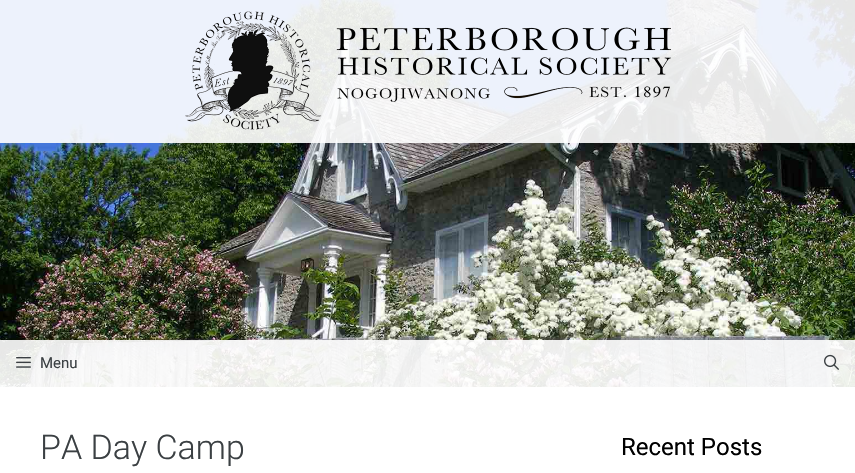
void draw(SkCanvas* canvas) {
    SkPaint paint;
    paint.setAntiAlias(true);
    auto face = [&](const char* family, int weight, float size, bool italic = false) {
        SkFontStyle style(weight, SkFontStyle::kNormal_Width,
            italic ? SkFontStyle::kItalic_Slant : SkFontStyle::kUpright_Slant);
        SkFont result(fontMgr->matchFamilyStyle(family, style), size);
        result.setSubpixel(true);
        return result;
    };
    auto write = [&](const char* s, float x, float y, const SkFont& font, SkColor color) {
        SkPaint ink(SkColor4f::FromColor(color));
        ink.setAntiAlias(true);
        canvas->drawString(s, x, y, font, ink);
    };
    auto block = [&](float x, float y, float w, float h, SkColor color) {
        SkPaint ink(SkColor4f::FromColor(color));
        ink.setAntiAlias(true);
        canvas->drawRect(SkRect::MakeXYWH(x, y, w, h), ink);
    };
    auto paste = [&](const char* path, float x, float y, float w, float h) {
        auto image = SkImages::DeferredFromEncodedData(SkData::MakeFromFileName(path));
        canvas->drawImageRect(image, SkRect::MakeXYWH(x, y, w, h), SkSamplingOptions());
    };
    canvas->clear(SK_ColorWHITE);
    paste("pic1.png", 0, 0, 855, 387);
    block(0, 0, 855, 143, SkColorSetARGB(230, 255, 255, 255));
    paste("pic2.png", 185, 11, 486, 119);
    block(0, 340, 855, 47, SkColorSetARGB(230, 255, 255, 255));
    paste("pic3.png", 16, 357, 15, 11);
    auto kFont1 = face("Roboto", 400, 15);
    write("Menu", 40, 368, kFont1, SkColorSetRGB(59, 64, 67));
    paste("pic4.png", 824, 354, 15, 16);
    auto kFont2 = face("Roboto", 300, 34);
    write("PA Day Camp", 40, 459, kFont2, SkColorSetRGB(59, 64, 67));
    auto kFont3 = face("Roboto", 400, 24);
    write("Recent Posts", 621, 455, kFont3, SK_ColorBLACK);
}
